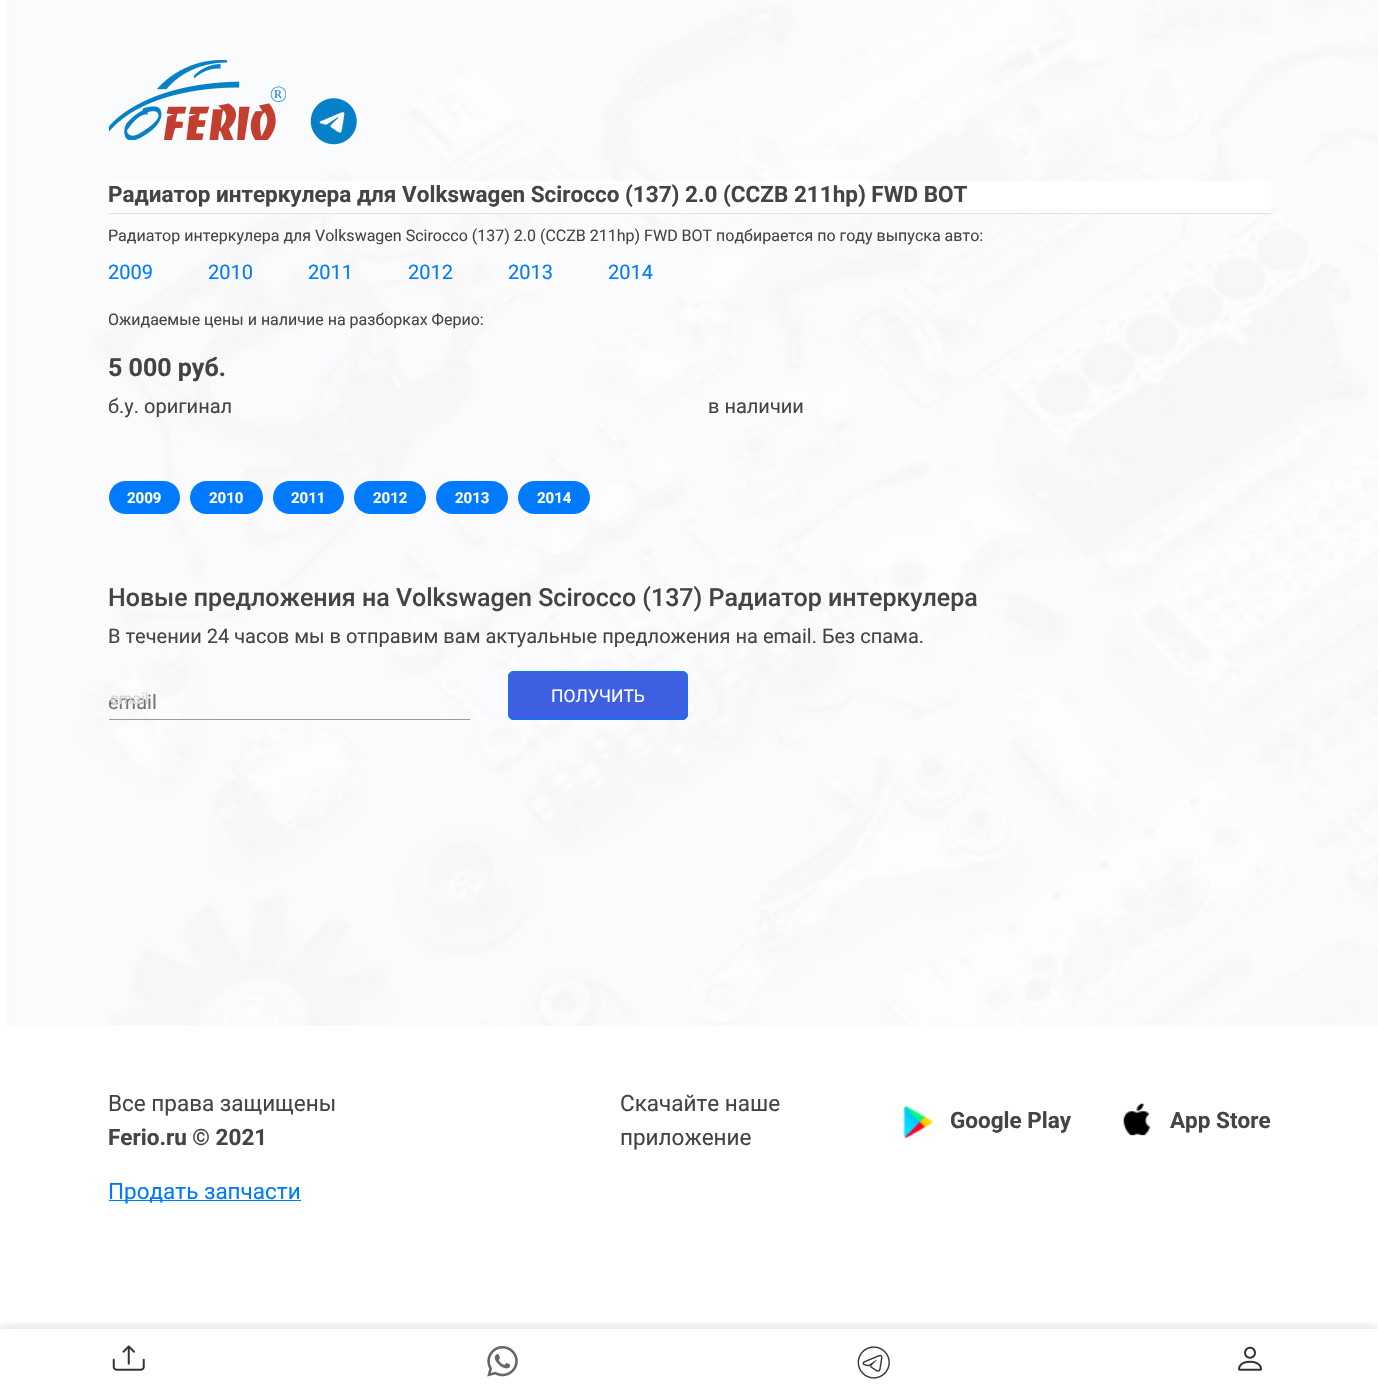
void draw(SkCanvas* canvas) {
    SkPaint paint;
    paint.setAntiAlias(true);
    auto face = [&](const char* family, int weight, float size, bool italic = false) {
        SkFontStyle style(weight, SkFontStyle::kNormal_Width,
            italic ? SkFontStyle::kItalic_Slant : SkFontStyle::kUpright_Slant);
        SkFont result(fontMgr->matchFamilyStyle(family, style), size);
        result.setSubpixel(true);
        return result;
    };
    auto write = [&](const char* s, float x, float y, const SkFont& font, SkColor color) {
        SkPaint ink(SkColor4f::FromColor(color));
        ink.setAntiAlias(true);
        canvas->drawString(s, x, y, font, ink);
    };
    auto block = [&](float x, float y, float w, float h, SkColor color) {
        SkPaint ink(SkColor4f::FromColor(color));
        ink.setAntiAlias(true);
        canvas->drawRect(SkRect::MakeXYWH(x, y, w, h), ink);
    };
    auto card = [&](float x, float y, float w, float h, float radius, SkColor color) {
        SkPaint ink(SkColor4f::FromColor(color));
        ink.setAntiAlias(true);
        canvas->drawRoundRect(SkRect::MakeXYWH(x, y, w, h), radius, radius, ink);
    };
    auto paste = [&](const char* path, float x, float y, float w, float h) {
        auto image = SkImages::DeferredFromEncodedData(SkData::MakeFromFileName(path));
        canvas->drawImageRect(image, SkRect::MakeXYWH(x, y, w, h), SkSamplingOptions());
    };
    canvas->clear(SK_ColorWHITE);
    paste("pic1.png", 7, 0, 1371, 1026);
    paste("pic2.png", 109, 60, 177, 80);
    auto kFont1 = face("Liberation Serif", 400, 12);
    write("R", 274, 98, kFont1, SkColorSetRGB(6, 129, 200));
    paste("pic3.png", 310, 98, 47, 47);
    block(109, 181, 1162, 32, SK_ColorWHITE);
    block(109, 213, 1162, 1, SkColorSetRGB(222, 226, 230));
    auto kFont2 = face("Roboto", 700, 22.5f);
    write("Радиатор интеркулера для Volkswagen Scirocco (137) 2.0 (CCZB 211hp) FWD BOT", 108, 202, kFont2, SkColorSetRGB(69, 68, 68));
    auto kFont3 = face("Roboto", 400, 16);
    write("Радиатор интеркулера для Volkswagen Scirocco (137) 2.0 (CCZB 211hp) FWD BOT подбирается по году выпуска авто:", 108, 241, kFont3, SkColorSetRGB(69, 68, 68));
    auto kFont4 = face("Roboto", 400, 20);
    write("2009", 108, 279, kFont4, SkColorSetRGB(0, 123, 255));
    write("2010", 208, 279, kFont4, SkColorSetRGB(0, 123, 255));
    write("2011", 308, 279, kFont4, SkColorSetRGB(0, 123, 255));
    write("2012", 408, 279, kFont4, SkColorSetRGB(0, 123, 255));
    write("2013", 508, 279, kFont4, SkColorSetRGB(0, 123, 255));
    write("2014", 608, 279, kFont4, SkColorSetRGB(0, 123, 255));
    write("Ожидаемые цены и наличие на разборках Ферио:", 108, 325, kFont3, SkColorSetRGB(69, 68, 68));
    auto kFont5 = face("Roboto", 700, 25);
    write("5 000 руб.", 108, 376, kFont5, SkColorSetRGB(69, 68, 68));
    write("б.у. оригинал", 108, 413, kFont4, SkColorSetRGB(69, 68, 68));
    write("в наличии", 708, 413, kFont4, SkColorSetRGB(69, 68, 68));
    card(109, 481, 71, 33, 16.5f, SkColorSetRGB(0, 123, 255));
    auto kFont6 = face("Roboto", 700, 15);
    write("2009", 127, 503, kFont6, SK_ColorWHITE);
    card(190, 481, 73, 33, 16.5f, SkColorSetRGB(0, 123, 255));
    write("2010", 209, 503, kFont6, SK_ColorWHITE);
    card(273, 481, 71, 33, 16.5f, SkColorSetRGB(0, 123, 255));
    write("2011", 291, 503, kFont6, SK_ColorWHITE);
    card(354, 481, 72, 33, 16.5f, SkColorSetRGB(0, 123, 255));
    write("2012", 373, 503, kFont6, SK_ColorWHITE);
    card(436, 481, 72, 33, 16.5f, SkColorSetRGB(0, 123, 255));
    write("2013", 455, 503, kFont6, SK_ColorWHITE);
    card(518, 481, 72, 33, 16.5f, SkColorSetRGB(0, 123, 255));
    write("2014", 537, 503, kFont6, SK_ColorWHITE);
    auto kFont7 = face("Roboto", 500, 25);
    write("Новые предложения на Volkswagen Scirocco (137) Радиатор интеркулера", 108, 606, kFont7, SkColorSetRGB(69, 68, 68));
    write("В течении 24 часов мы в отправим вам актуальные предложения на email. Без спама.", 108, 643, kFont4, SkColorSetRGB(69, 68, 68));
    write("email", 108, 709, kFont4, SkColorSetRGB(117, 117, 117));
    auto kFont8 = face("Liberation Sans", 400, 16);
    write("email", 110, 704, kFont8, SkColorSetRGB(213, 213, 213));
    block(109, 719, 361, 1, SkColorSetRGB(153, 153, 153));
    paint.setColor(SkColorSetRGB(60, 96, 225));
    canvas->drawRoundRect(SkRect::MakeXYWH(508.5f, 671.5f, 179, 48), 4.5f, 4.5f, paint);
    paint.setStyle(SkPaint::kStroke_Style);
    paint.setStrokeWidth(1);
    paint.setColor(SkColorSetRGB(0, 123, 255));
    canvas->drawRoundRect(SkRect::MakeXYWH(508.5f, 671.5f, 179, 48), 4.5f, 4.5f, paint);
    auto kFont9 = face("Roboto", 400, 17.5f);
    write("ПОЛУЧИТЬ", 551, 702, kFont9, SK_ColorWHITE);
    auto kFont10 = face("Roboto", 400, 22.5f);
    write("Все права защищены", 108, 1111, kFont10, SkColorSetRGB(69, 68, 68));
    write("Ferio.ru © 2021", 108, 1145, kFont2, SkColorSetRGB(69, 68, 68));
    write("Скачайте наше", 620, 1111, kFont10, SkColorSetRGB(69, 68, 68));
    write("приложение", 620, 1145, kFont10, SkColorSetRGB(69, 68, 68));
    paste("pic4.png", 903, 1106, 30, 33);
    write("Google Play", 950, 1128, kFont2, SkColorSetRGB(69, 68, 68));
    paste("pic5.png", 1123, 1103, 28, 33);
    write("App Store", 1170, 1128, kFont2, SkColorSetRGB(69, 68, 68));
    block(109, 1200, 192, 1, SkColorSetRGB(0, 123, 255));
    write("Продать запчасти", 108, 1199, kFont10, SkColorSetRGB(0, 123, 255));
    canvas->save();
    canvas->clipRect(SkRect::MakeXYWH(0, 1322, 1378, 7));
    paint.setStyle(SkPaint::kFill_Style);
    paint.setColor(SkColorSetARGB(26, 0, 0, 0));
    paint.setMaskFilter(SkMaskFilter::MakeBlur(kNormal_SkBlurStyle, 5));
    canvas->drawRect(SkRect::MakeXYWH(0, 1326, 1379, 67), paint);
    paint.setMaskFilter(nullptr);
    canvas->restore();
    paste("pic6.png", 112, 1345, 33, 26);
    paste("pic7.png", 487, 1345, 31, 32);
    paste("pic8.png", 857, 1346, 33, 33);
    paste("pic9.png", 1238, 1346, 24, 25);
}
